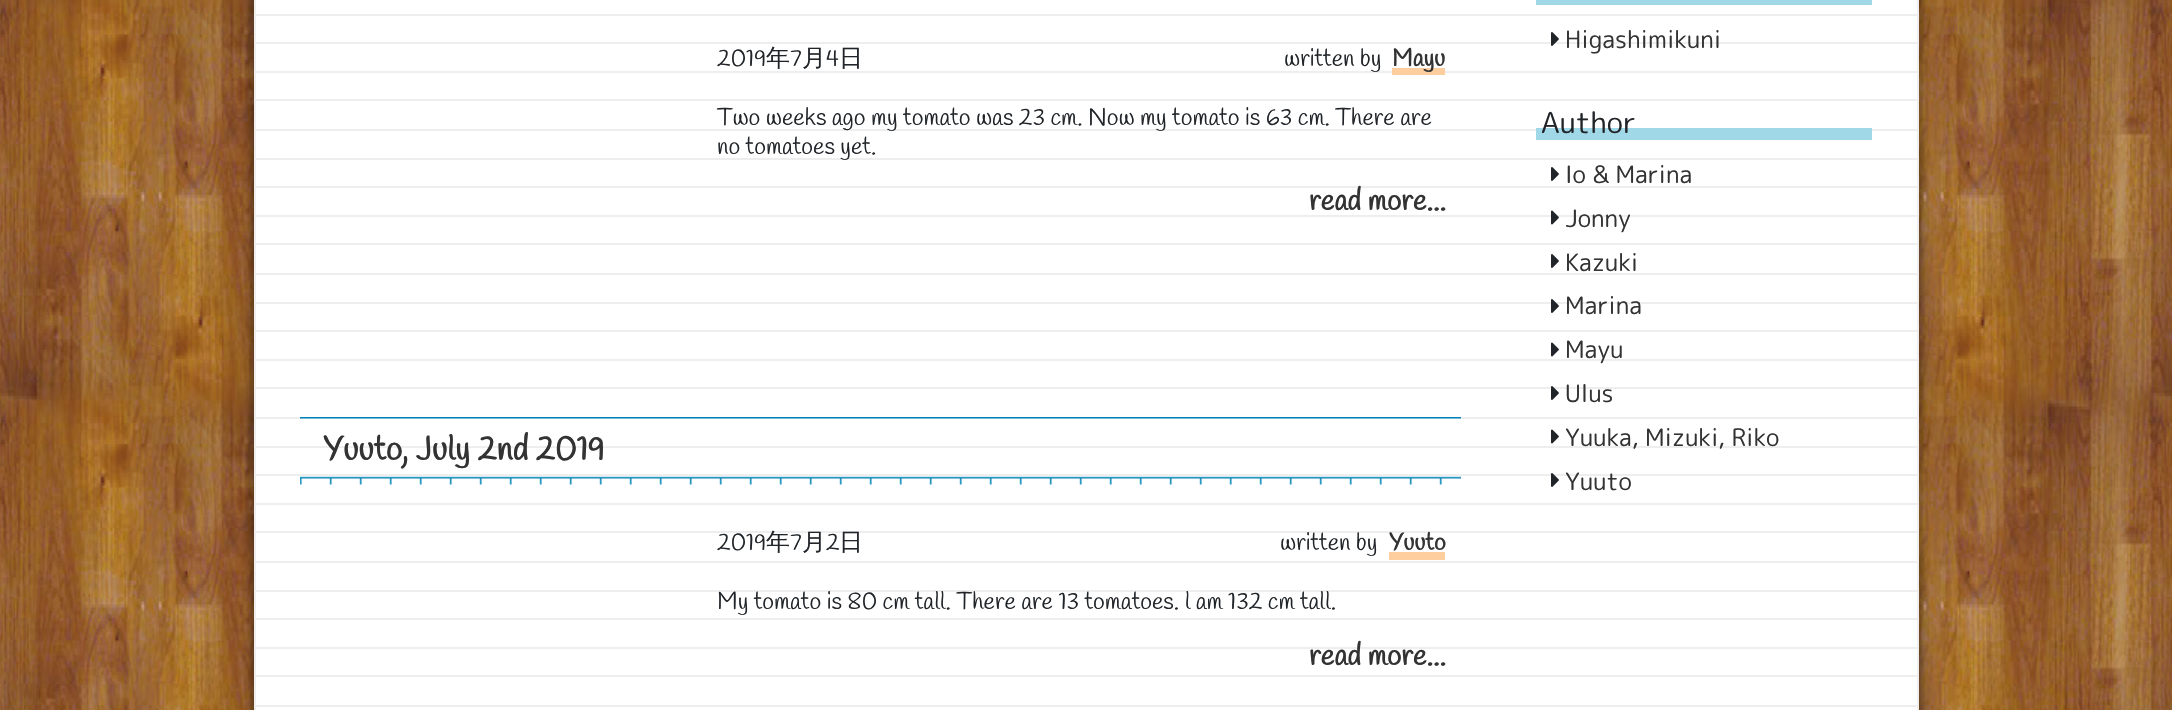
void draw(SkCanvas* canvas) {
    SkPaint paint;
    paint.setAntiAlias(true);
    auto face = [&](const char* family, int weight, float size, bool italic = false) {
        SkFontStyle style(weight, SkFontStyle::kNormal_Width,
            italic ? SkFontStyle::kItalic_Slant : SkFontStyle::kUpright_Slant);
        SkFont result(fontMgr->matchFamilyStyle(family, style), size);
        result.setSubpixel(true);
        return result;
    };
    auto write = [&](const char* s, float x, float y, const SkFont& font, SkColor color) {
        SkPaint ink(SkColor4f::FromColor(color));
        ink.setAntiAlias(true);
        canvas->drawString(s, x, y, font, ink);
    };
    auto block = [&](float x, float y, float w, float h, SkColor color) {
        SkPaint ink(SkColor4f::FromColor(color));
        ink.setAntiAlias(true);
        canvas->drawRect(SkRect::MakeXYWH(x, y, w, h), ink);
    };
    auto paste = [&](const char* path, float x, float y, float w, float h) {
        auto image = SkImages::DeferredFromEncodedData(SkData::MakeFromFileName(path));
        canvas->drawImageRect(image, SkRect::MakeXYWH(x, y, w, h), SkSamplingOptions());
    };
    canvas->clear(SK_ColorWHITE);
    paste("pic1.png", 0, 0, 2172, 710);
    paint.setColor(SkColorSetARGB(153, 0, 0, 0));
    paint.setMaskFilter(SkMaskFilter::MakeBlur(kNormal_SkBlurStyle, 6));
    canvas->drawRect(SkRect::MakeXYWH(254, -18, 1665, 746), paint);
    paint.setMaskFilter(nullptr);
    block(256, 0, 1661, 710, SK_ColorWHITE);
    paste("pic2.png", 256, 14, 1661, 693);
    block(1917, 0, 2, 710, SkColorSetRGB(239, 239, 239));
    block(254, 0, 2, 710, SkColorSetRGB(239, 239, 239));
    auto kFont1 = face("Handlee", 400, 24);
    write("2019", 717, 66, kFont1, SkColorSetRGB(33, 37, 41));
    auto kFont2 = face("WenQuanYi Zen Hei", 500, 24);
    write("年", 766, 66, kFont2, SkColorSetRGB(33, 37, 41));
    write("7", 790, 66, kFont1, SkColorSetRGB(33, 37, 41));
    write("月", 802, 66, kFont2, SkColorSetRGB(33, 37, 41));
    write("4", 826, 66, kFont1, SkColorSetRGB(33, 37, 41));
    write("日", 839, 66, kFont2, SkColorSetRGB(33, 37, 41));
    write("written by", 1284, 66, kFont1, SkColorSetRGB(33, 37, 41));
    block(1392, 68, 53, 7, SkColorSetRGB(255, 206, 158));
    auto kFont3 = face("Handlee", 700, 24);
    write("Mayu", 1392, 66, kFont3, SkColorSetRGB(51, 51, 51));
    write("Two weeks ago my tomato was 23 cm. Now my tomato is 63 cm. There are", 717, 125, kFont1, SkColorSetRGB(33, 37, 41));
    write("no tomatoes yet.", 717, 154, kFont1, SkColorSetRGB(33, 37, 41));
    auto kFont4 = face("Handlee", 700, 29);
    write("read more...", 1309, 210, kFont4, SkColorSetRGB(51, 51, 51));
    paste("pic3.png", 300, 417, 1161, 68);
    auto kFont5 = face("Handlee", 700, 33.5f);
    write("Yuuto, July 2nd 2019", 323, 460, kFont5, SkColorSetRGB(51, 51, 51));
    write("2019", 717, 550, kFont1, SkColorSetRGB(33, 37, 41));
    write("年", 766, 550, kFont2, SkColorSetRGB(33, 37, 41));
    write("7", 790, 550, kFont1, SkColorSetRGB(33, 37, 41));
    write("月", 802, 550, kFont2, SkColorSetRGB(33, 37, 41));
    write("2", 826, 550, kFont1, SkColorSetRGB(33, 37, 41));
    write("日", 839, 550, kFont2, SkColorSetRGB(33, 37, 41));
    write("written by", 1280, 550, kFont1, SkColorSetRGB(33, 37, 41));
    write("Yuuto", 1389, 550, kFont3, SkColorSetRGB(51, 51, 51));
    block(1389, 552, 56, 8, SkColorSetRGB(255, 206, 158));
    write("My tomato is 80 cm tall. There are 13 tomatoes. l am 132 cm tall.", 717, 609, kFont1, SkColorSetRGB(33, 37, 41));
    write("read more...", 1309, 665, kFont4, SkColorSetRGB(51, 51, 51));
    block(1536, 0, 336, 5, SkColorSetRGB(161, 216, 232));
    paste("pic4.png", 1551, 32, 8, 14);
    auto kFont6 = face("Rounded Mplus 1c", 400, 24);
    write("Higashimikuni", 1565, 48, kFont6, SkColorSetRGB(51, 51, 51));
    block(1536, 128, 336, 12, SkColorSetRGB(161, 216, 232));
    auto kFont7 = face("Rounded Mplus 1c", 400, 29);
    write("Author", 1541, 133, kFont7, SkColorSetRGB(33, 37, 41));
    paste("pic5.png", 1551, 167, 8, 14);
    write("Io & Marina", 1565, 183, kFont6, SkColorSetRGB(51, 51, 51));
    paste("pic6.png", 1551, 210, 8, 15);
    write("Jonny", 1565, 227, kFont6, SkColorSetRGB(51, 51, 51));
    paste("pic5.png", 1551, 254, 8, 14);
    write("Kazuki", 1565, 271, kFont6, SkColorSetRGB(51, 51, 51));
    paste("pic7.png", 1551, 299, 8, 14);
    write("Marina", 1565, 314, kFont6, SkColorSetRGB(51, 51, 51));
    paste("pic8.png", 1551, 342, 8, 15);
    write("Mayu", 1565, 358, kFont6, SkColorSetRGB(51, 51, 51));
    paste("pic9.png", 1551, 386, 8, 14);
    write("Ulus", 1565, 402, kFont6, SkColorSetRGB(51, 51, 51));
    paste("pic8.png", 1551, 429, 8, 15);
    write("Yuuka, Mizuki, Riko", 1565, 446, kFont6, SkColorSetRGB(51, 51, 51));
    paste("pic9.png", 1551, 473, 8, 14);
    write("Yuuto", 1565, 490, kFont6, SkColorSetRGB(51, 51, 51));
}
